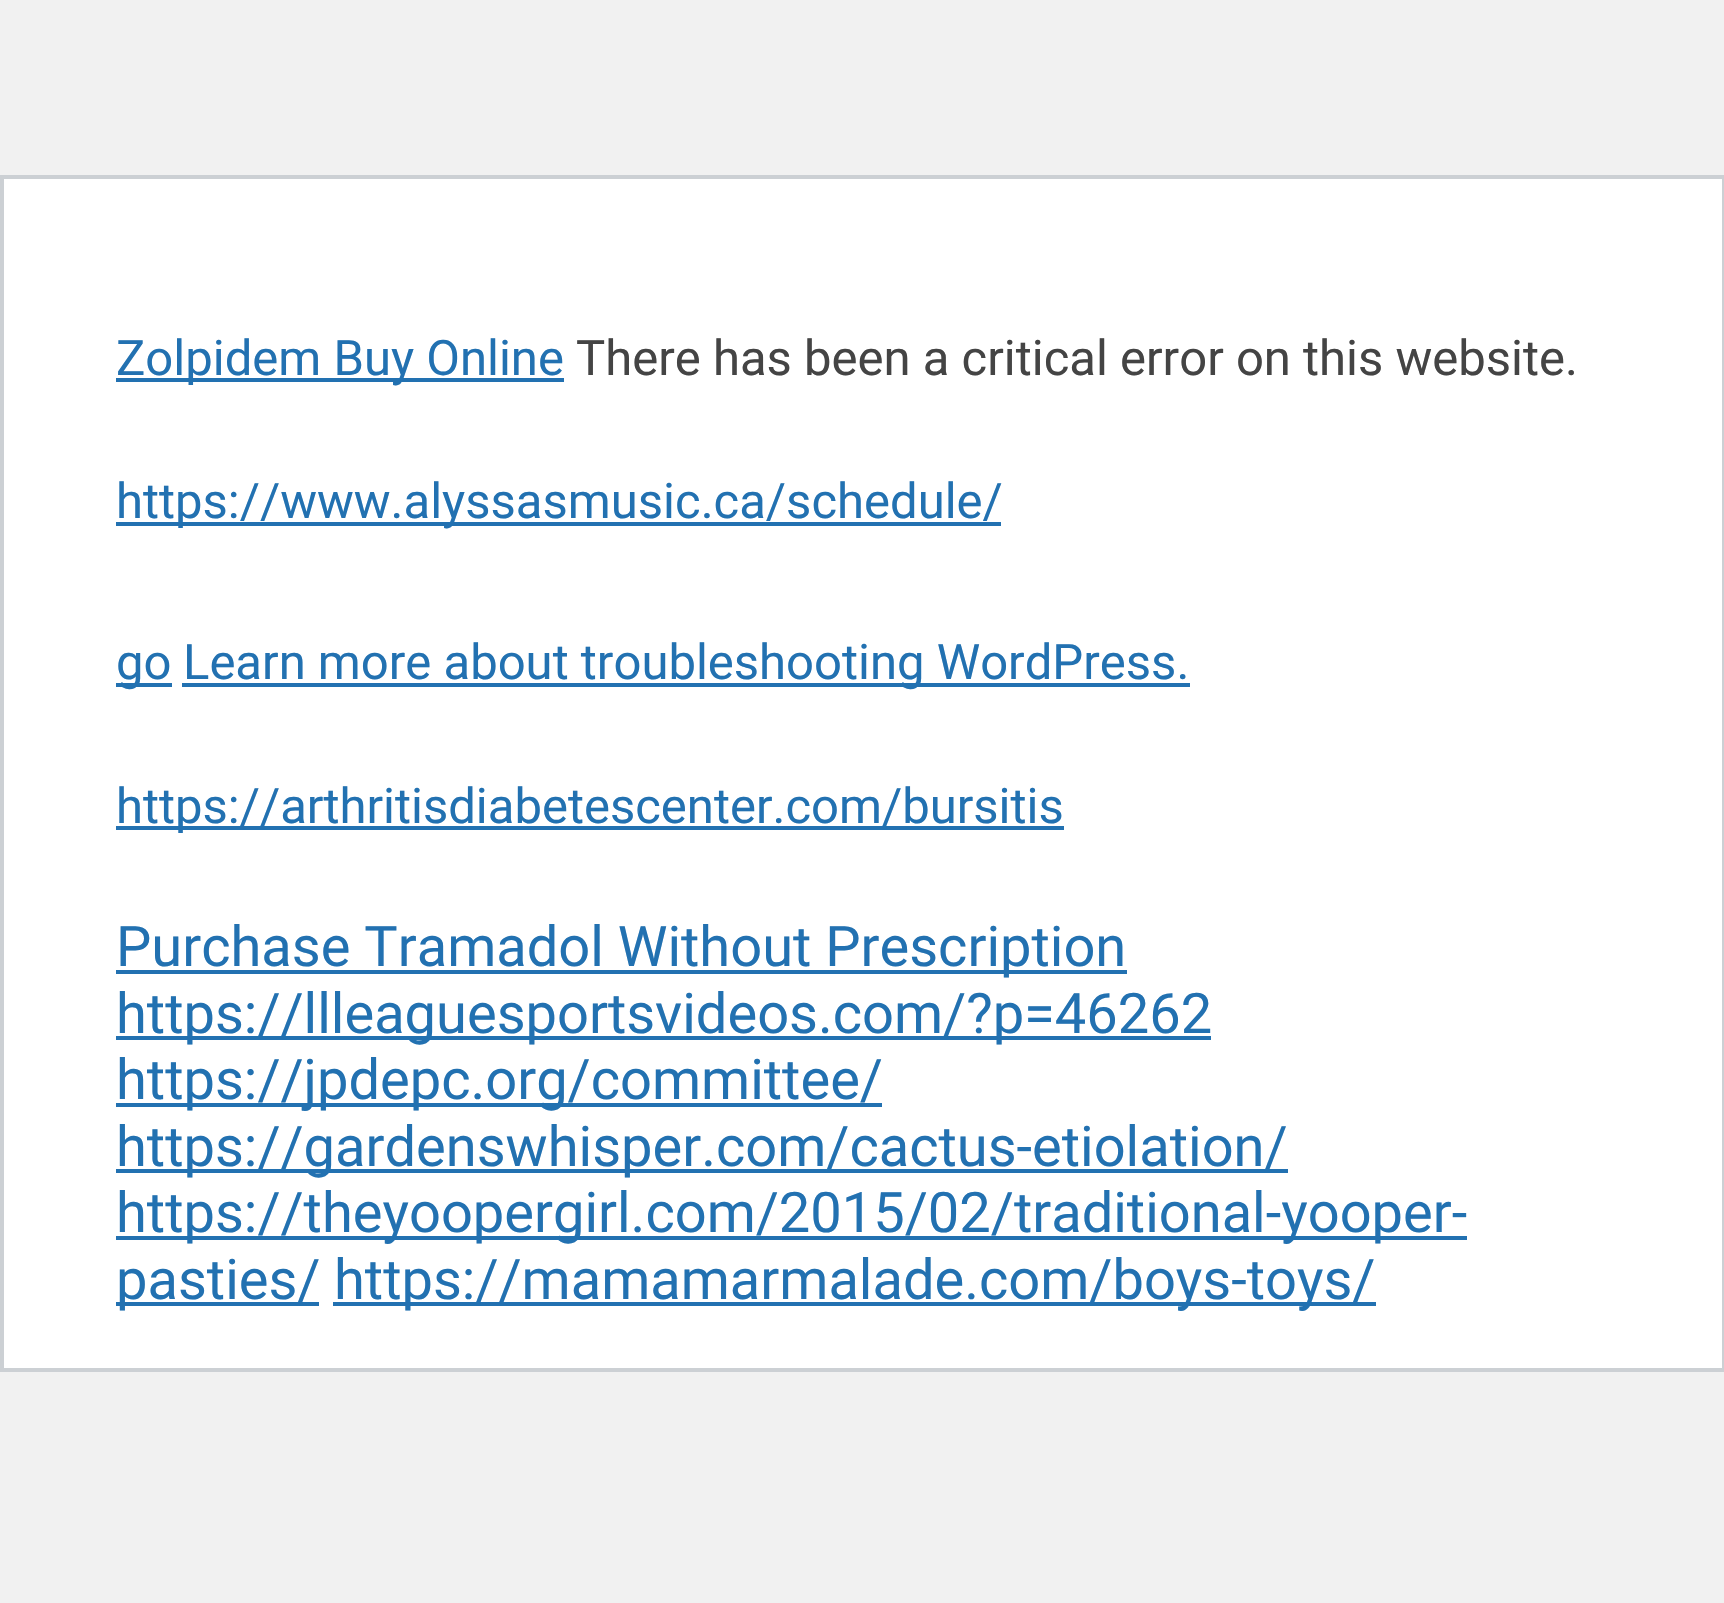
void draw(SkCanvas* canvas) {
    SkPaint paint;
    paint.setAntiAlias(true);
    auto face = [&](const char* family, int weight, float size, bool italic = false) {
        SkFontStyle style(weight, SkFontStyle::kNormal_Width,
            italic ? SkFontStyle::kItalic_Slant : SkFontStyle::kUpright_Slant);
        SkFont result(fontMgr->matchFamilyStyle(family, style), size);
        result.setSubpixel(true);
        return result;
    };
    auto write = [&](const char* s, float x, float y, const SkFont& font, SkColor color) {
        SkPaint ink(SkColor4f::FromColor(color));
        ink.setAntiAlias(true);
        canvas->drawString(s, x, y, font, ink);
    };
    auto block = [&](float x, float y, float w, float h, SkColor color) {
        SkPaint ink(SkColor4f::FromColor(color));
        ink.setAntiAlias(true);
        canvas->drawRect(SkRect::MakeXYWH(x, y, w, h), ink);
    };
    canvas->clear(SkColorSetRGB(241, 241, 241));
    paint.setColor(SK_ColorWHITE);
    canvas->drawRect(SkRect::MakeXYWH(2, 177, 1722, 1193), paint);
    paint.setStyle(SkPaint::kStroke_Style);
    paint.setStrokeWidth(4);
    paint.setColor(SkColorSetRGB(204, 208, 212));
    canvas->drawRect(SkRect::MakeXYWH(2, 177, 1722, 1193), paint);
    block(116, 378, 448, 4, SkColorSetRGB(34, 113, 177));
    auto kFont1 = face("Roboto", 400, 49);
    write("Zolpidem Buy Online", 116, 375, kFont1, SkColorSetRGB(34, 113, 177));
    write("There has been a critical error on this website.", 576, 375, kFont1, SkColorSetRGB(68, 68, 68));
    block(116, 522, 885, 4, SkColorSetRGB(34, 113, 177));
    write("https://www.alyssasmusic.ca/schedule/", 116, 518, kFont1, SkColorSetRGB(34, 113, 177));
    block(116, 683, 56, 4, SkColorSetRGB(34, 113, 177));
    write("go", 116, 679, kFont1, SkColorSetRGB(34, 113, 177));
    block(182, 683, 1008, 4, SkColorSetRGB(34, 113, 177));
    write("Learn more about troubleshooting WordPress.", 183, 679, kFont1, SkColorSetRGB(34, 113, 177));
    block(116, 826, 948, 4, SkColorSetRGB(34, 113, 177));
    write("https://arthritisdiabetescenter.com/bursitis", 116, 823, kFont1, SkColorSetRGB(34, 113, 177));
    block(116, 970, 1011, 4, SkColorSetRGB(34, 113, 177));
    auto kFont2 = face("Roboto", 400, 56);
    write("Purchase Tramadol Without Prescription", 116, 966, kFont2, SkColorSetRGB(34, 113, 177));
    block(116, 1036, 1095, 4, SkColorSetRGB(34, 113, 177));
    write("https://llleaguesportsvideos.com/?p=46262", 116, 1033, kFont2, SkColorSetRGB(34, 113, 177));
    block(116, 1103, 766, 4, SkColorSetRGB(34, 113, 177));
    write("https://jpdepc.org/committee/", 116, 1099, kFont2, SkColorSetRGB(34, 113, 177));
    block(116, 1169, 1172, 4, SkColorSetRGB(34, 113, 177));
    write("https://gardenswhisper.com/cactus-etiolation/", 116, 1166, kFont2, SkColorSetRGB(34, 113, 177));
    block(116, 1236, 1351, 4, SkColorSetRGB(34, 113, 177));
    write("https://theyoopergirl.com/2015/02/traditional-yooper-", 116, 1232, kFont2, SkColorSetRGB(34, 113, 177));
    block(116, 1302, 203, 4, SkColorSetRGB(34, 113, 177));
    write("pasties/", 116, 1299, kFont2, SkColorSetRGB(34, 113, 177));
    block(333, 1302, 1043, 4, SkColorSetRGB(34, 113, 177));
    write("https://mamamarmalade.com/boys-toys/", 334, 1299, kFont2, SkColorSetRGB(34, 113, 177));
}
